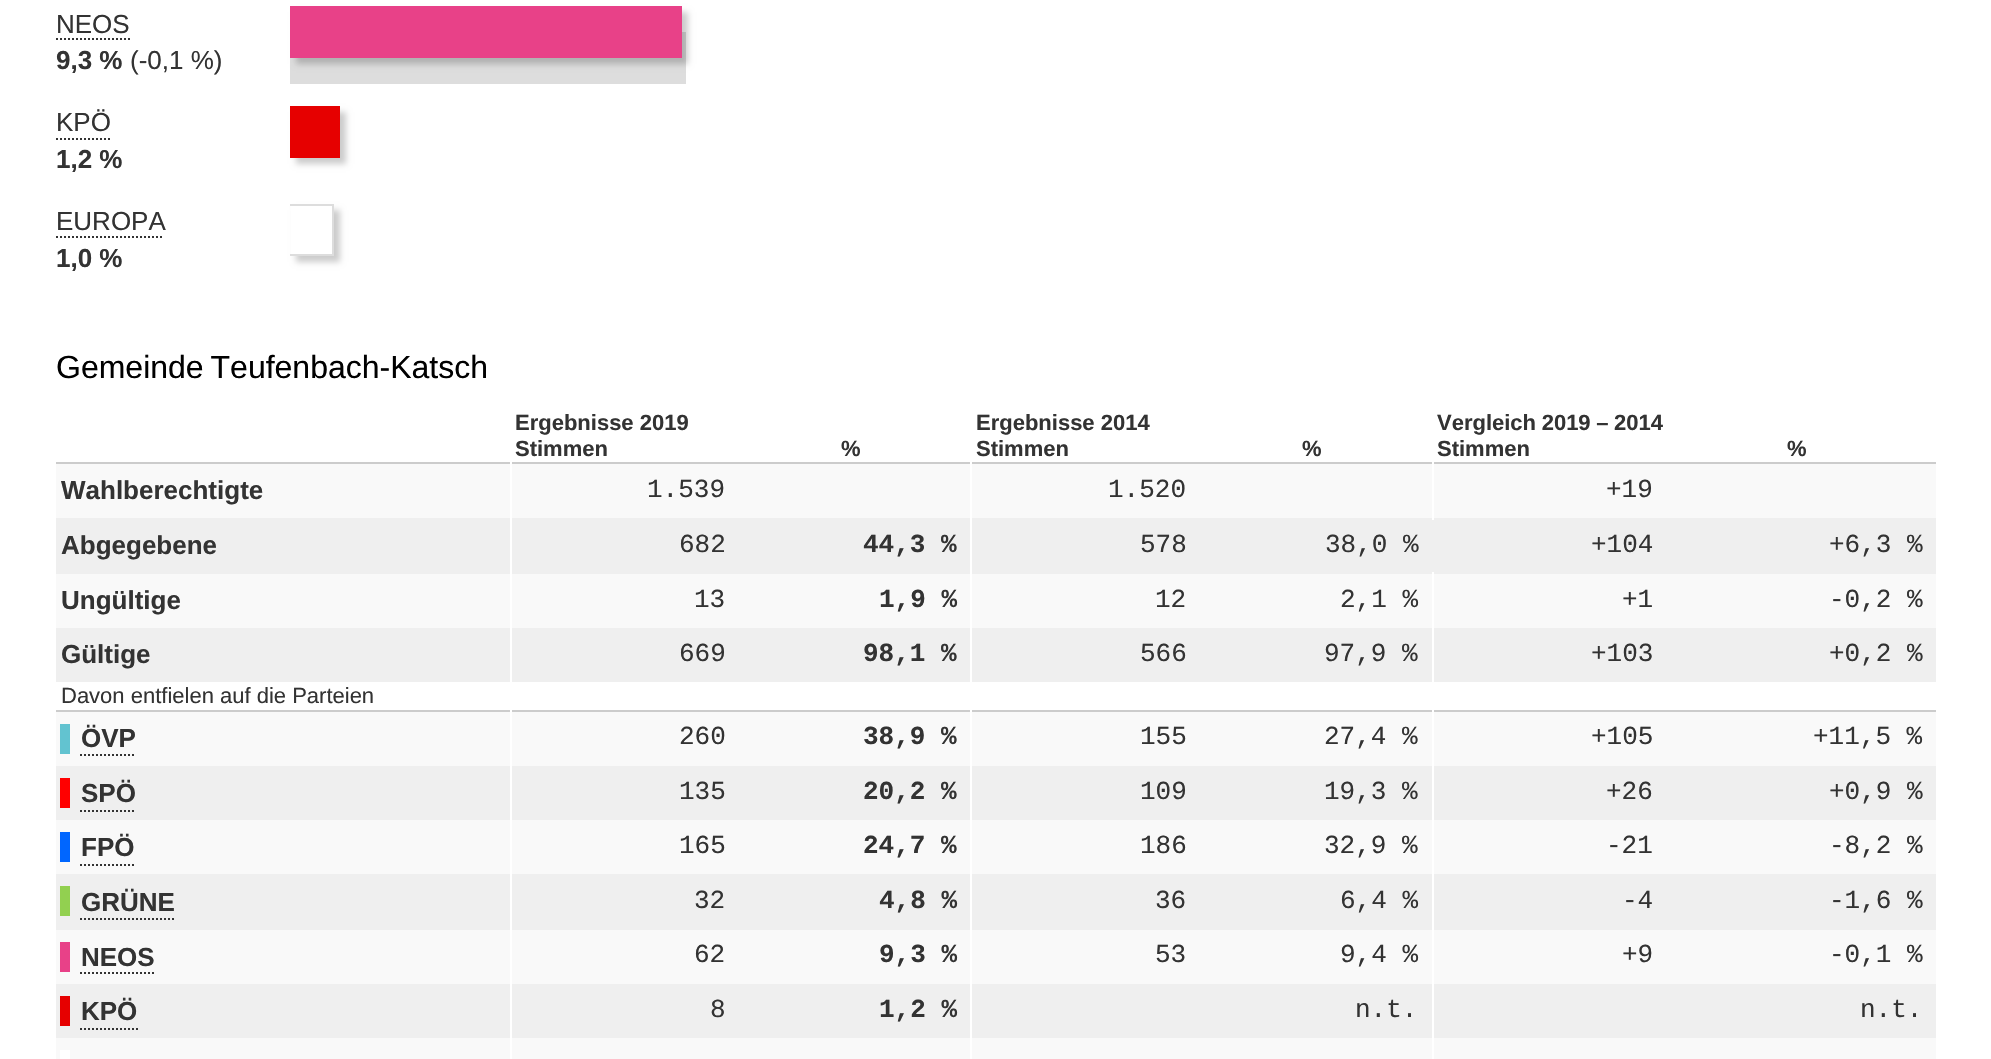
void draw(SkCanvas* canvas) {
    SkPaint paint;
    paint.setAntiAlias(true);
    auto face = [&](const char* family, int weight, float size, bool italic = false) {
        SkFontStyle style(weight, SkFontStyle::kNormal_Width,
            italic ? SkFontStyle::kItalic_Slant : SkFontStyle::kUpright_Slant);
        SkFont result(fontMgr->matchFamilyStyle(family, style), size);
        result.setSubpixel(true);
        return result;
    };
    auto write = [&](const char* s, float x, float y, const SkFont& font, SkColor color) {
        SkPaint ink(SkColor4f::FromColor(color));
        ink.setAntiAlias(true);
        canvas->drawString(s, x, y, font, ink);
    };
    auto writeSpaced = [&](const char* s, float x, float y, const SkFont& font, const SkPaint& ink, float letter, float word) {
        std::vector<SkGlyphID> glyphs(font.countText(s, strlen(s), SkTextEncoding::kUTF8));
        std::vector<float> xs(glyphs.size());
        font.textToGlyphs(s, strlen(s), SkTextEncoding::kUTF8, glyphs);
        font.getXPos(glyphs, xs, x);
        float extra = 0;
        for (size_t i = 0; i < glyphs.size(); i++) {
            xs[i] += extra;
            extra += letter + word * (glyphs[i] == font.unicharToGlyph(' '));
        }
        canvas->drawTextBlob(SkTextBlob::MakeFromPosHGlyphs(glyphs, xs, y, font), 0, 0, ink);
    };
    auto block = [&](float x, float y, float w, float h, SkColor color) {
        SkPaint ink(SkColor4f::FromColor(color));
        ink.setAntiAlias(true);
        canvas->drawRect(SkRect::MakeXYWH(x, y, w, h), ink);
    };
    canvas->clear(SK_ColorWHITE);
    auto kFont1 = face("Liberation Sans", 400, 26);
    write("NEOS", 56, 33, kFont1, SkColorSetRGB(51, 51, 51));
    paint.setStyle(SkPaint::kStroke_Style);
    paint.setStrokeWidth(2);
    paint.setColor(SkColorSetRGB(51, 51, 51));
    paint.setPathEffect(SkDashPathEffect::Make({{2, 2}}, 0));
    canvas->drawPath(SkPathBuilder().moveTo(56, 39).lineTo(130, 39).detach(), paint);
    paint.setPathEffect(nullptr);
    auto kFont2 = face("Liberation Sans", 700, 26);
    write("9,3 %", 56, 69, kFont2, SkColorSetRGB(51, 51, 51));
    block(290, 32, 396, 52, SkColorSetRGB(221, 221, 221));
    paint.setStyle(SkPaint::kFill_Style);
    paint.setColor(SkColorSetARGB(51, 0, 0, 0));
    paint.setMaskFilter(SkMaskFilter::MakeBlur(kNormal_SkBlurStyle, 3));
    canvas->drawRect(SkRect::MakeXYWH(296, 12, 392, 52), paint);
    paint.setMaskFilter(nullptr);
    block(290, 6, 392, 52, SkColorSetRGB(232, 65, 136));
    write("(-0,1 %)", 130, 69, kFont1, SkColorSetRGB(51, 51, 51));
    write("KPÖ", 56, 131, kFont1, SkColorSetRGB(51, 51, 51));
    paint.setStyle(SkPaint::kStroke_Style);
    paint.setColor(SkColorSetRGB(51, 51, 51));
    paint.setPathEffect(SkDashPathEffect::Make({{2, 2}}, 0));
    canvas->drawPath(SkPathBuilder().moveTo(56, 139).lineTo(110, 139).detach(), paint);
    paint.setPathEffect(nullptr);
    write("1,2 %", 56, 168, kFont2, SkColorSetRGB(51, 51, 51));
    paint.setStyle(SkPaint::kFill_Style);
    paint.setColor(SkColorSetARGB(51, 0, 0, 0));
    paint.setMaskFilter(SkMaskFilter::MakeBlur(kNormal_SkBlurStyle, 3));
    canvas->drawRect(SkRect::MakeXYWH(296, 112, 50, 52), paint);
    paint.setMaskFilter(nullptr);
    block(290, 106, 50, 52, SkColorSetRGB(230, 0, 0));
    write("EUROPA", 56, 230, kFont1, SkColorSetRGB(51, 51, 51));
    paint.setStyle(SkPaint::kStroke_Style);
    paint.setColor(SkColorSetRGB(51, 51, 51));
    paint.setPathEffect(SkDashPathEffect::Make({{2, 2}}, 0));
    canvas->drawPath(SkPathBuilder().moveTo(56, 237).lineTo(164, 237).detach(), paint);
    paint.setPathEffect(nullptr);
    write("1,0 %", 56, 267, kFont2, SkColorSetRGB(51, 51, 51));
    paint.setStyle(SkPaint::kFill_Style);
    paint.setColor(SkColorSetARGB(51, 0, 0, 0));
    paint.setMaskFilter(SkMaskFilter::MakeBlur(kNormal_SkBlurStyle, 3));
    canvas->drawRect(SkRect::MakeXYWH(296, 210, 44, 52), paint);
    paint.setMaskFilter(nullptr);
    block(290, 204, 44, 2, SkColorSetRGB(221, 221, 221));
    block(332, 204, 2, 52, SkColorSetRGB(221, 221, 221));
    block(290, 254, 44, 2, SkColorSetRGB(221, 221, 221));
    block(291, 206, 41, 48, SK_ColorWHITE);
    auto kFont3 = face("Liberation Sans", 400, 32);
    paint.setColor(SK_ColorBLACK);
    writeSpaced("Gemeinde Teufenbach-Katsch", 56, 378, kFont3, paint, 0, -2);
    auto kFont4 = face("Liberation Sans", 700, 22);
    write("Ergebnisse 2019", 515, 430, kFont4, SkColorSetRGB(51, 51, 51));
    write("Ergebnisse 2014", 976, 430, kFont4, SkColorSetRGB(51, 51, 51));
    paint.setColor(SkColorSetRGB(51, 51, 51));
    writeSpaced("Vergleich 2019 – 2014", 1437, 430, kFont4, paint, 0, -0.5f);
    block(56, 462, 1880, 2, SkColorSetRGB(204, 204, 204));
    write("Stimmen", 515, 456, kFont4, SkColorSetRGB(51, 51, 51));
    write("%", 841, 456, kFont4, SkColorSetRGB(51, 51, 51));
    write("Stimmen", 976, 456, kFont4, SkColorSetRGB(51, 51, 51));
    write("%", 1302, 456, kFont4, SkColorSetRGB(51, 51, 51));
    write("Stimmen", 1437, 456, kFont4, SkColorSetRGB(51, 51, 51));
    write("%", 1787, 456, kFont4, SkColorSetRGB(51, 51, 51));
    block(56, 464, 1880, 54, SkColorSetRGB(249, 249, 249));
    write("Wahlberechtigte", 61, 499, kFont2, SkColorSetRGB(51, 51, 51));
    auto kFont5 = face("Liberation Mono", 400, 26);
    write("1.539", 647, 497, kFont5, SkColorSetRGB(51, 51, 51));
    write("1.520", 1108, 497, kFont5, SkColorSetRGB(51, 51, 51));
    block(56, 518, 1880, 56, SkColorSetRGB(239, 239, 239));
    block(1432, 462, 2, 58, SK_ColorWHITE);
    write("+19", 1606, 497, kFont5, SkColorSetRGB(51, 51, 51));
    write("Abgegebene", 61, 554, kFont2, SkColorSetRGB(51, 51, 51));
    write("682", 679, 552, kFont5, SkColorSetRGB(51, 51, 51));
    auto kFont6 = face("Liberation Mono", 700, 26);
    write("44,3 %", 863, 552, kFont6, SkColorSetRGB(51, 51, 51));
    write("578", 1140, 552, kFont5, SkColorSetRGB(51, 51, 51));
    write("38,0 %", 1325, 552, kFont5, SkColorSetRGB(51, 51, 51));
    write("+104", 1591, 552, kFont5, SkColorSetRGB(51, 51, 51));
    write("+6,3 %", 1829, 552, kFont5, SkColorSetRGB(51, 51, 51));
    block(56, 574, 1880, 54, SkColorSetRGB(249, 249, 249));
    write("Ungültige", 61, 609, kFont2, SkColorSetRGB(51, 51, 51));
    write("13", 694, 607, kFont5, SkColorSetRGB(51, 51, 51));
    write("1,9 %", 879, 607, kFont6, SkColorSetRGB(51, 51, 51));
    write("12", 1155, 607, kFont5, SkColorSetRGB(51, 51, 51));
    write("2,1 %", 1340, 607, kFont5, SkColorSetRGB(51, 51, 51));
    write("+1", 1622, 607, kFont5, SkColorSetRGB(51, 51, 51));
    write("-0,2 %", 1829, 607, kFont5, SkColorSetRGB(51, 51, 51));
    block(56, 628, 1880, 54, SkColorSetRGB(239, 239, 239));
    write("Gültige", 61, 663, kFont2, SkColorSetRGB(51, 51, 51));
    block(510, 462, 2, 222, SK_ColorWHITE);
    write("669", 679, 661, kFont5, SkColorSetRGB(51, 51, 51));
    write("98,1 %", 863, 661, kFont6, SkColorSetRGB(51, 51, 51));
    block(970, 462, 2, 222, SK_ColorWHITE);
    write("566", 1140, 661, kFont5, SkColorSetRGB(51, 51, 51));
    write("97,9 %", 1324, 661, kFont5, SkColorSetRGB(51, 51, 51));
    block(1432, 572, 2, 112, SK_ColorWHITE);
    write("+103", 1591, 661, kFont5, SkColorSetRGB(51, 51, 51));
    write("+0,2 %", 1829, 661, kFont5, SkColorSetRGB(51, 51, 51));
    block(56, 710, 1880, 2, SkColorSetRGB(204, 204, 204));
    auto kFont7 = face("Liberation Sans", 400, 22);
    write("Davon entfielen auf die Parteien", 61, 703, kFont7, SkColorSetRGB(51, 51, 51));
    block(56, 1038, 1880, 21, SkColorSetRGB(249, 249, 249));
    block(60, 1050, 10, 9, SK_ColorWHITE);
    block(56, 712, 1880, 54, SkColorSetRGB(249, 249, 249));
    block(56, 766, 1880, 54, SkColorSetRGB(239, 239, 239));
    block(56, 820, 1880, 54, SkColorSetRGB(249, 249, 249));
    block(56, 874, 1880, 56, SkColorSetRGB(239, 239, 239));
    block(56, 930, 1880, 54, SkColorSetRGB(249, 249, 249));
    block(56, 984, 1880, 54, SkColorSetRGB(239, 239, 239));
    block(510, 710, 2, 349, SK_ColorWHITE);
    block(970, 710, 2, 349, SK_ColorWHITE);
    block(1432, 710, 2, 349, SK_ColorWHITE);
    block(60, 724, 10, 30, SkColorSetRGB(98, 195, 208));
    paint.setStyle(SkPaint::kStroke_Style);
    paint.setPathEffect(SkDashPathEffect::Make({{2, 2}}, 0));
    canvas->drawPath(SkPathBuilder().moveTo(80, 755).lineTo(136, 755).detach(), paint);
    paint.setPathEffect(nullptr);
    write("ÖVP", 81, 747, kFont2, SkColorSetRGB(51, 51, 51));
    write("260", 679, 744, kFont5, SkColorSetRGB(51, 51, 51));
    write("38,9 %", 863, 744, kFont6, SkColorSetRGB(51, 51, 51));
    write("155", 1140, 744, kFont5, SkColorSetRGB(51, 51, 51));
    write("27,4 %", 1324, 744, kFont5, SkColorSetRGB(51, 51, 51));
    write("+105", 1591, 744, kFont5, SkColorSetRGB(51, 51, 51));
    write("+11,5 %", 1813, 744, kFont5, SkColorSetRGB(51, 51, 51));
    block(60, 778, 10, 30, SkColorSetRGB(255, 0, 0));
    paint.setPathEffect(SkDashPathEffect::Make({{2, 2}}, 0));
    canvas->drawPath(SkPathBuilder().moveTo(80, 811).lineTo(136, 811).detach(), paint);
    paint.setPathEffect(nullptr);
    write("SPÖ", 81, 802, kFont2, SkColorSetRGB(51, 51, 51));
    write("135", 679, 799, kFont5, SkColorSetRGB(51, 51, 51));
    write("20,2 %", 863, 799, kFont6, SkColorSetRGB(51, 51, 51));
    write("109", 1140, 799, kFont5, SkColorSetRGB(51, 51, 51));
    write("19,3 %", 1324, 799, kFont5, SkColorSetRGB(51, 51, 51));
    write("+26", 1606, 799, kFont5, SkColorSetRGB(51, 51, 51));
    write("+0,9 %", 1829, 799, kFont5, SkColorSetRGB(51, 51, 51));
    block(60, 832, 10, 30, SkColorSetRGB(0, 102, 255));
    paint.setPathEffect(SkDashPathEffect::Make({{2, 2}}, 0));
    canvas->drawPath(SkPathBuilder().moveTo(80, 865).lineTo(134, 865).detach(), paint);
    paint.setPathEffect(nullptr);
    write("FPÖ", 81, 856, kFont2, SkColorSetRGB(51, 51, 51));
    write("165", 679, 853, kFont5, SkColorSetRGB(51, 51, 51));
    write("24,7 %", 863, 853, kFont6, SkColorSetRGB(51, 51, 51));
    write("186", 1140, 853, kFont5, SkColorSetRGB(51, 51, 51));
    write("32,9 %", 1324, 853, kFont5, SkColorSetRGB(51, 51, 51));
    write("-21", 1606, 853, kFont5, SkColorSetRGB(51, 51, 51));
    write("-8,2 %", 1829, 853, kFont5, SkColorSetRGB(51, 51, 51));
    block(60, 886, 10, 30, SkColorSetRGB(146, 208, 80));
    paint.setPathEffect(SkDashPathEffect::Make({{2, 2}}, 0));
    canvas->drawPath(SkPathBuilder().moveTo(80, 919).lineTo(174, 919).detach(), paint);
    paint.setPathEffect(nullptr);
    write("GRÜNE", 81, 911, kFont2, SkColorSetRGB(51, 51, 51));
    write("32", 694, 908, kFont5, SkColorSetRGB(51, 51, 51));
    write("4,8 %", 879, 908, kFont6, SkColorSetRGB(51, 51, 51));
    write("36", 1155, 908, kFont5, SkColorSetRGB(51, 51, 51));
    write("6,4 %", 1340, 908, kFont5, SkColorSetRGB(51, 51, 51));
    write("-4", 1622, 908, kFont5, SkColorSetRGB(51, 51, 51));
    write("-1,6 %", 1829, 908, kFont5, SkColorSetRGB(51, 51, 51));
    block(60, 942, 10, 30, SkColorSetRGB(232, 65, 136));
    paint.setPathEffect(SkDashPathEffect::Make({{2, 2}}, 0));
    canvas->drawPath(SkPathBuilder().moveTo(80, 973).lineTo(154, 973).detach(), paint);
    paint.setPathEffect(nullptr);
    write("NEOS", 81, 966, kFont2, SkColorSetRGB(51, 51, 51));
    write("62", 694, 962, kFont5, SkColorSetRGB(51, 51, 51));
    write("9,3 %", 879, 962, kFont6, SkColorSetRGB(51, 51, 51));
    write("53", 1155, 962, kFont5, SkColorSetRGB(51, 51, 51));
    write("9,4 %", 1340, 962, kFont5, SkColorSetRGB(51, 51, 51));
    write("+9", 1622, 962, kFont5, SkColorSetRGB(51, 51, 51));
    write("-0,1 %", 1829, 962, kFont5, SkColorSetRGB(51, 51, 51));
    block(60, 996, 10, 30, SkColorSetRGB(230, 0, 0));
    paint.setPathEffect(SkDashPathEffect::Make({{2, 2}}, 0));
    canvas->drawPath(SkPathBuilder().moveTo(80, 1029).lineTo(138, 1029).detach(), paint);
    paint.setPathEffect(nullptr);
    write("KPÖ", 81, 1020, kFont2, SkColorSetRGB(51, 51, 51));
    write("8", 710, 1017, kFont5, SkColorSetRGB(51, 51, 51));
    write("1,2 %", 879, 1017, kFont6, SkColorSetRGB(51, 51, 51));
    write("n.t.", 1355, 1017, kFont5, SkColorSetRGB(51, 51, 51));
    write("n.t.", 1860, 1017, kFont5, SkColorSetRGB(51, 51, 51));
}
